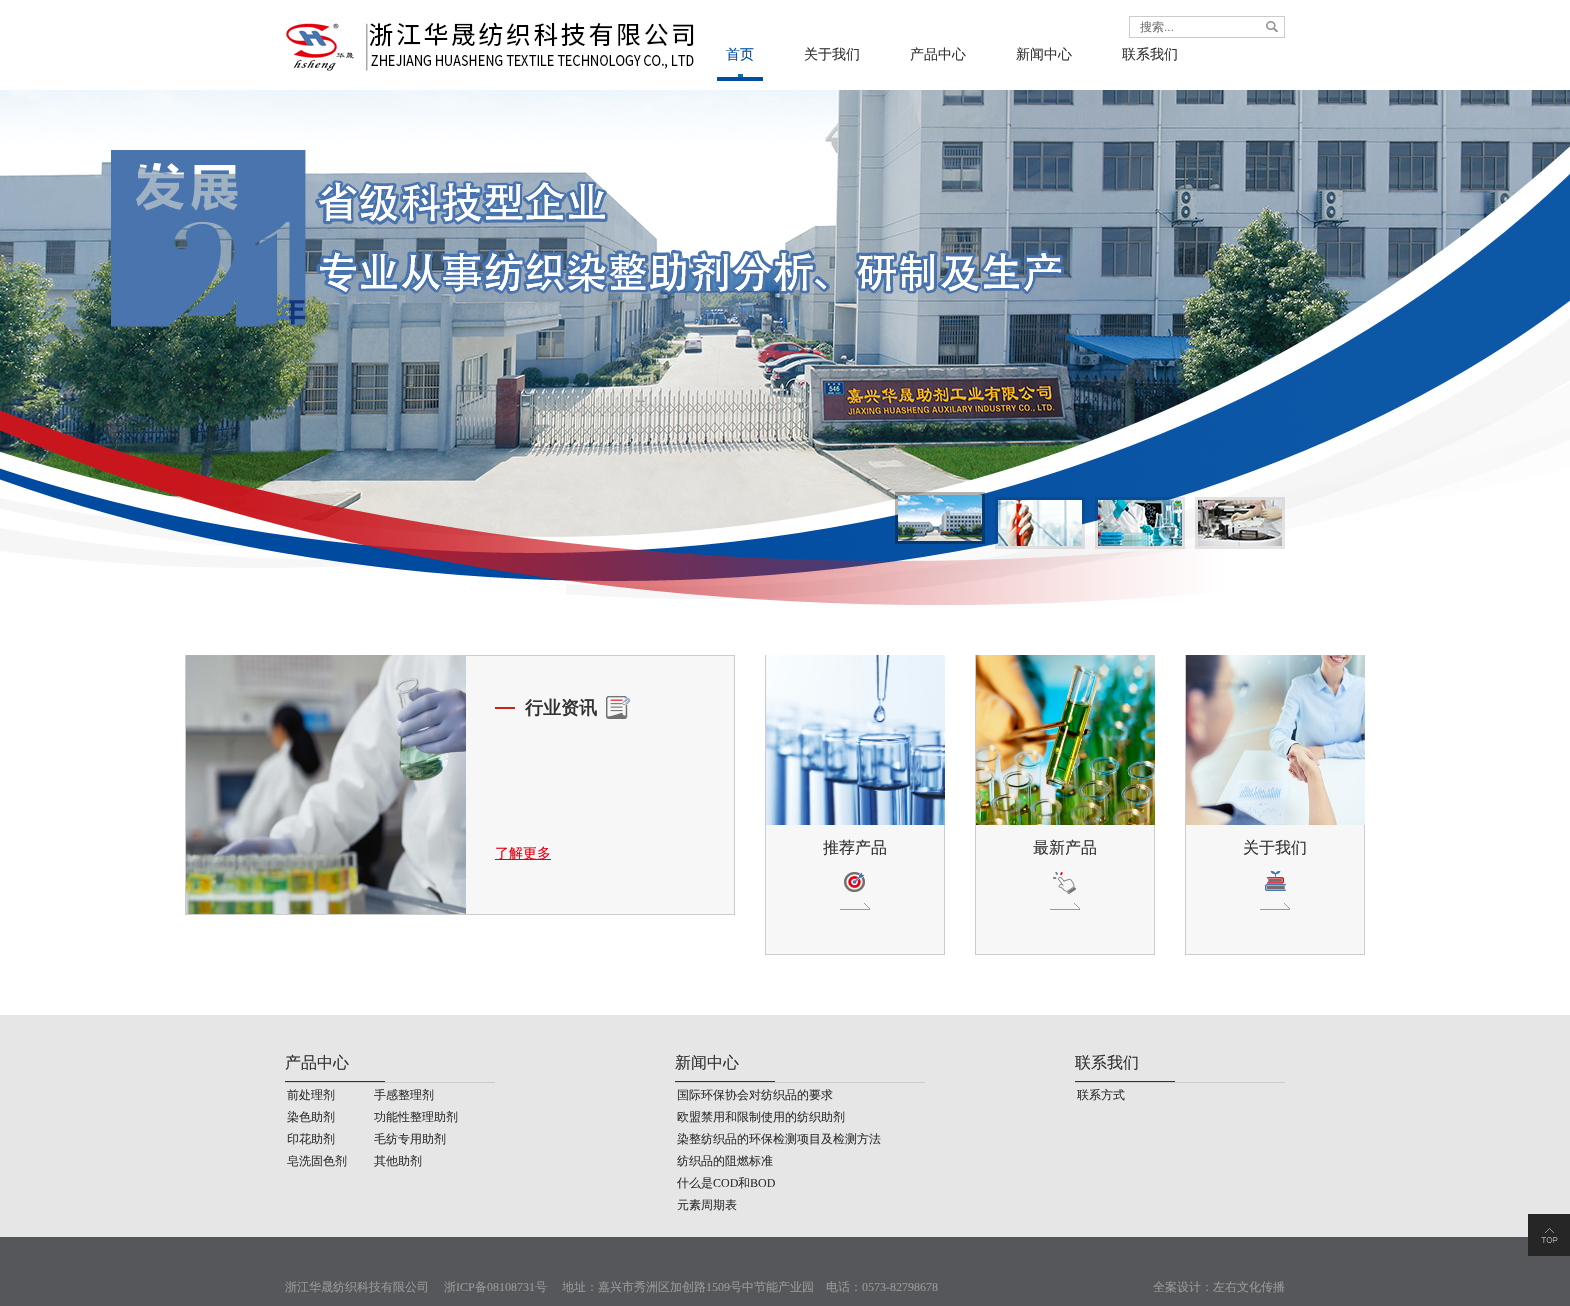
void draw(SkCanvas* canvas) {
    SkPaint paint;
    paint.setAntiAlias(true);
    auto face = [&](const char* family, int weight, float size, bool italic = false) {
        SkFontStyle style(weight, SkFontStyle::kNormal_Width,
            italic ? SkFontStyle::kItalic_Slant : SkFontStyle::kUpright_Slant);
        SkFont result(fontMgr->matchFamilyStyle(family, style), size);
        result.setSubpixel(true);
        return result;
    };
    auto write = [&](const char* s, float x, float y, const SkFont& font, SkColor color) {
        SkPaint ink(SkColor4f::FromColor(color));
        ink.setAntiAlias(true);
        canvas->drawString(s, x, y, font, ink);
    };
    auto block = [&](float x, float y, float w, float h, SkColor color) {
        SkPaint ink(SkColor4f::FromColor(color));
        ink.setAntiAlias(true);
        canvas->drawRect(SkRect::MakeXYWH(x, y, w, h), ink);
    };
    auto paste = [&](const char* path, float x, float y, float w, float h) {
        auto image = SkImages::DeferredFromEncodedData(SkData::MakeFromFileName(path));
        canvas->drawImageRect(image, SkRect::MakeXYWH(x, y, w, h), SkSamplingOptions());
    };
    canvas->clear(SK_ColorWHITE);
    paste("pic1.png", 286, 22, 408, 49);
    paint.setStyle(SkPaint::kStroke_Style);
    paint.setStrokeWidth(1);
    paint.setColor(SkColorSetRGB(204, 204, 204));
    canvas->drawRect(SkRect::MakeXYWH(1129.5f, 16.5f, 155, 21), paint);
    auto kFont1 = face("WenQuanYi Zen Hei", 500, 12);
    write("搜索", 1140, 31, kFont1, SkColorSetRGB(117, 117, 117));
    auto kFont2 = face("Liberation Sans", 400, 12);
    write("...", 1164, 31, kFont2, SkColorSetRGB(117, 117, 117));
    paste("pic2.png", 1266, 21, 12, 11);
    block(738, 74, 5, 3, SkColorSetRGB(12, 108, 176));
    block(717, 77, 46, 4, SkColorSetRGB(0, 78, 162));
    auto kFont3 = face("WenQuanYi Zen Hei", 500, 14);
    write("首页", 726, 59, kFont3, SkColorSetRGB(0, 78, 162));
    write("关于我们", 804, 59, kFont3, SkColorSetRGB(51, 51, 51));
    write("产品中心", 910, 59, kFont3, SkColorSetRGB(51, 51, 51));
    write("新闻中心", 1016, 59, kFont3, SkColorSetRGB(51, 51, 51));
    write("联系我们", 1122, 59, kFont3, SkColorSetRGB(51, 51, 51));
    paste("pic3.png", 0, 90, 1570, 447);
    paste("pic8.png", 0, 161, 1570, 444);
    block(895, 492, 90, 52, SkColorSetARGB(77, 0, 0, 0));
    paste("pic4.png", 898, 495, 84, 46);
    block(995, 497, 90, 52, SkColorSetARGB(26, 0, 0, 0));
    paste("pic5.png", 998, 500, 84, 46);
    block(1095, 497, 90, 52, SkColorSetARGB(26, 0, 0, 0));
    paste("pic6.png", 1098, 500, 84, 46);
    block(1195, 497, 90, 52, SkColorSetARGB(26, 0, 0, 0));
    paste("pic7.png", 1198, 500, 84, 46);
    block(465, 655, 270, 1, SkColorSetRGB(204, 204, 204));
    block(734, 655, 1, 260, SkColorSetRGB(204, 204, 204));
    block(185, 914, 550, 1, SkColorSetRGB(204, 204, 204));
    block(185, 655, 1, 260, SkColorSetRGB(204, 204, 204));
    paste("pic9.png", 186, 655, 280, 259);
    block(466, 656, 268, 258, SkColorSetRGB(247, 247, 247));
    paste("pic10.png", 495, 696, 135, 23);
    auto kFont4 = face("WenQuanYi Zen Hei", 700, 18);
    write("行业资讯", 525, 714, kFont4, SkColorSetRGB(51, 51, 51));
    block(495, 859, 56, 1, SkColorSetRGB(231, 0, 18));
    write("了解更多", 495, 858, kFont3, SkColorSetRGB(231, 0, 18));
    block(766, 825, 178, 129, SkColorSetRGB(247, 247, 247));
    block(765, 954, 180, 1, SkColorSetRGB(204, 204, 204));
    block(765, 655, 1, 300, SkColorSetRGB(204, 204, 204));
    paste("pic11.png", 766, 655, 179, 170);
    block(944, 825, 1, 129, SkColorSetRGB(204, 204, 204));
    auto kFont5 = face("WenQuanYi Zen Hei", 500, 16);
    write("推荐产品", 823, 853, kFont5, SkColorSetRGB(51, 51, 51));
    paste("pic12.png", 840, 872, 30, 38);
    block(976, 825, 178, 129, SkColorSetRGB(247, 247, 247));
    block(975, 954, 180, 1, SkColorSetRGB(204, 204, 204));
    block(975, 655, 1, 300, SkColorSetRGB(204, 204, 204));
    paste("pic13.png", 976, 655, 179, 170);
    block(1154, 825, 1, 129, SkColorSetRGB(204, 204, 204));
    write("最新产品", 1033, 853, kFont5, SkColorSetRGB(51, 51, 51));
    paste("pic14.png", 1050, 872, 30, 38);
    block(1186, 825, 178, 129, SkColorSetRGB(247, 247, 247));
    block(1185, 954, 180, 1, SkColorSetRGB(204, 204, 204));
    block(1185, 655, 1, 300, SkColorSetRGB(204, 204, 204));
    paste("pic15.png", 1186, 655, 179, 170);
    block(1364, 825, 1, 129, SkColorSetRGB(204, 204, 204));
    write("关于我们", 1243, 853, kFont5, SkColorSetRGB(51, 51, 51));
    paste("pic16.png", 1260, 871, 30, 39);
    block(0, 1015, 1570, 222, SkColorSetRGB(230, 230, 230));
    block(285, 1081, 100, 1, SkColorSetRGB(51, 51, 51));
    write("产品中心", 285, 1068, kFont5, SkColorSetRGB(51, 51, 51));
    block(285, 1082, 210, 1, SkColorSetRGB(204, 204, 204));
    write("前处理剂", 287, 1099, kFont1, SkColorSetRGB(51, 51, 51));
    write("手感整理剂", 374, 1099, kFont1, SkColorSetRGB(51, 51, 51));
    write("染色助剂", 287, 1121, kFont1, SkColorSetRGB(51, 51, 51));
    write("功能性整理助剂", 374, 1121, kFont1, SkColorSetRGB(51, 51, 51));
    write("印花助剂", 287, 1143, kFont1, SkColorSetRGB(51, 51, 51));
    write("毛纺专用助剂", 374, 1143, kFont1, SkColorSetRGB(51, 51, 51));
    write("皂洗固色剂", 287, 1165, kFont1, SkColorSetRGB(51, 51, 51));
    write("其他助剂", 374, 1165, kFont1, SkColorSetRGB(51, 51, 51));
    block(675, 1081, 100, 1, SkColorSetRGB(51, 51, 51));
    write("新闻中心", 675, 1068, kFont5, SkColorSetRGB(51, 51, 51));
    block(675, 1082, 250, 1, SkColorSetRGB(204, 204, 204));
    write("国际环保协会对纺织品的要求", 677, 1099, kFont1, SkColorSetRGB(51, 51, 51));
    write("欧盟禁用和限制使用的纺织助剂", 677, 1121, kFont1, SkColorSetRGB(51, 51, 51));
    write("染整纺织品的环保检测项目及检测方法", 677, 1143, kFont1, SkColorSetRGB(51, 51, 51));
    write("纺织品的阻燃标准", 677, 1165, kFont1, SkColorSetRGB(51, 51, 51));
    write("什么是", 677, 1187, kFont1, SkColorSetRGB(51, 51, 51));
    auto kFont6 = face("Liberation Serif", 400, 12);
    write("COD", 713, 1187, kFont6, SkColorSetRGB(51, 51, 51));
    write("和", 738, 1187, kFont1, SkColorSetRGB(51, 51, 51));
    write("BOD", 750, 1187, kFont6, SkColorSetRGB(51, 51, 51));
    write("元素周期表", 677, 1209, kFont1, SkColorSetRGB(51, 51, 51));
    block(1075, 1081, 100, 1, SkColorSetRGB(51, 51, 51));
    write("联系我们", 1075, 1068, kFont5, SkColorSetRGB(51, 51, 51));
    block(1075, 1082, 210, 1, SkColorSetRGB(204, 204, 204));
    write("联系方式", 1077, 1099, kFont1, SkColorSetRGB(51, 51, 51));
    block(0, 1237, 1570, 69, SkColorSetRGB(86, 87, 90));
    paste("pic17.png", 1528, 1214, 42, 42);
    write("浙江华晟纺织科技有限公司", 285, 1291, kFont1, SkColorSetRGB(153, 153, 153));
    write("浙", 444, 1291, kFont1, SkColorSetRGB(153, 153, 153));
    write("ICP", 456, 1291, kFont6, SkColorSetRGB(153, 153, 153));
    write("备", 475, 1291, kFont1, SkColorSetRGB(153, 153, 153));
    write("08108731", 487, 1291, kFont6, SkColorSetRGB(153, 153, 153));
    write("号", 535, 1291, kFont1, SkColorSetRGB(153, 153, 153));
    write("地址：嘉兴市秀洲区加创路", 562, 1291, kFont1, SkColorSetRGB(153, 153, 153));
    write("1509", 706, 1291, kFont6, SkColorSetRGB(153, 153, 153));
    write("号中节能产业园", 730, 1291, kFont1, SkColorSetRGB(153, 153, 153));
    write("电话：", 826, 1291, kFont1, SkColorSetRGB(153, 153, 153));
    write("0573-82798678", 862, 1291, kFont6, SkColorSetRGB(153, 153, 153));
    write("全案设计：左右文化传播", 1153, 1291, kFont1, SkColorSetRGB(153, 153, 153));
}
